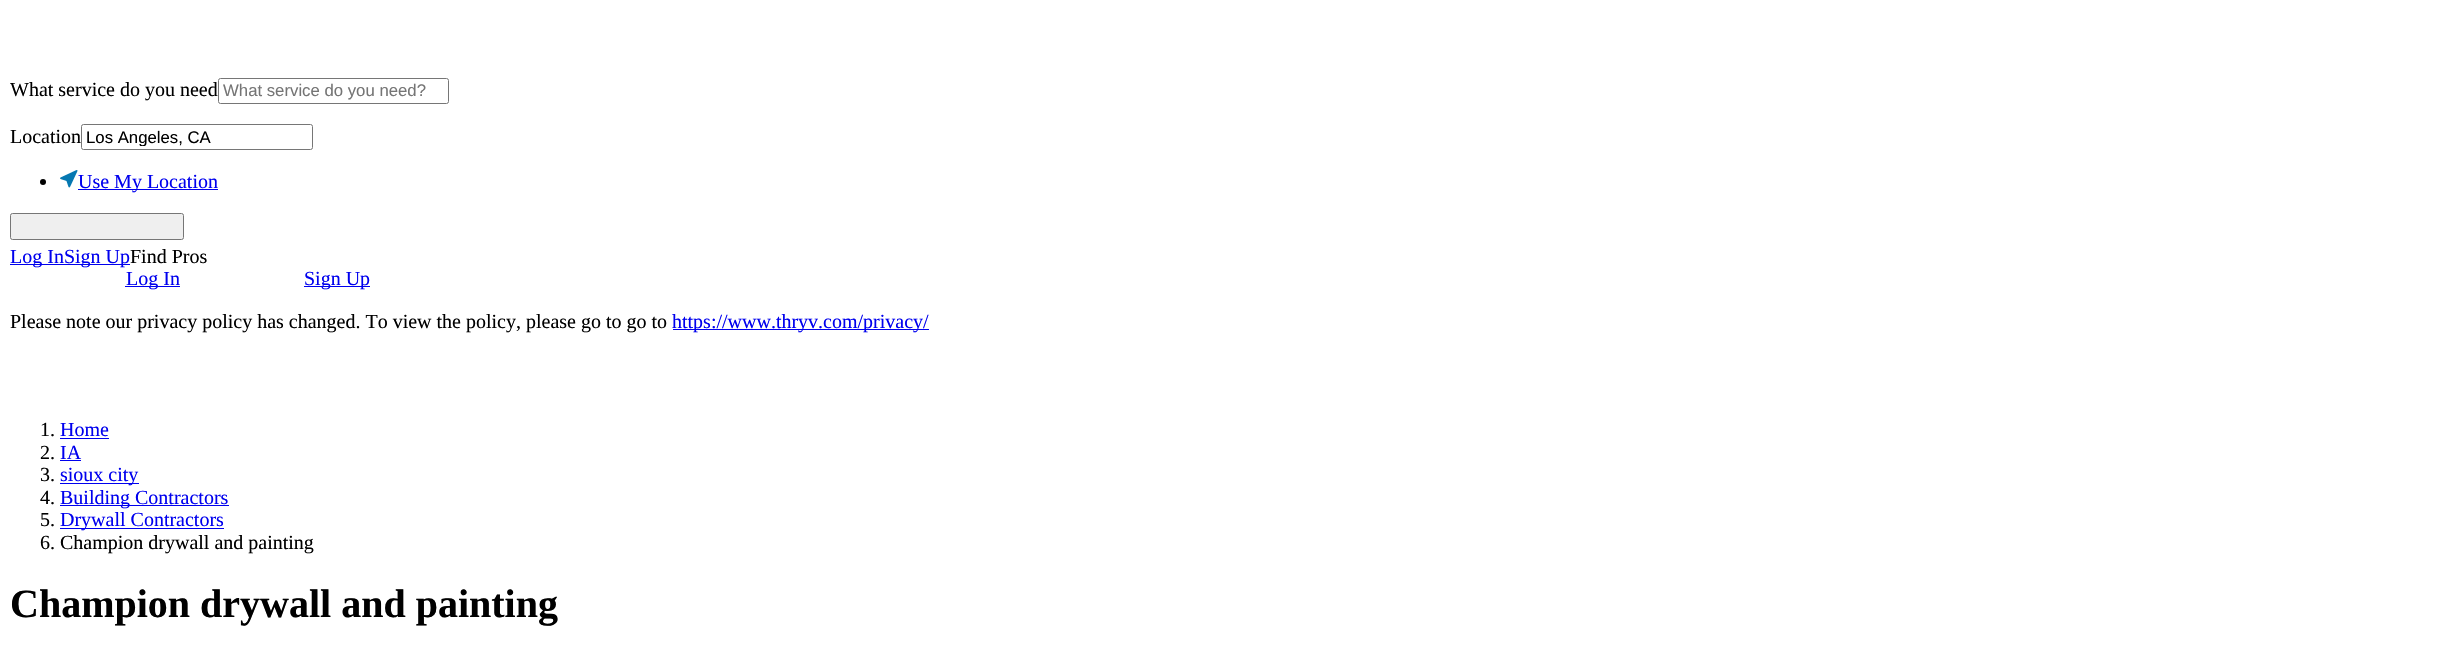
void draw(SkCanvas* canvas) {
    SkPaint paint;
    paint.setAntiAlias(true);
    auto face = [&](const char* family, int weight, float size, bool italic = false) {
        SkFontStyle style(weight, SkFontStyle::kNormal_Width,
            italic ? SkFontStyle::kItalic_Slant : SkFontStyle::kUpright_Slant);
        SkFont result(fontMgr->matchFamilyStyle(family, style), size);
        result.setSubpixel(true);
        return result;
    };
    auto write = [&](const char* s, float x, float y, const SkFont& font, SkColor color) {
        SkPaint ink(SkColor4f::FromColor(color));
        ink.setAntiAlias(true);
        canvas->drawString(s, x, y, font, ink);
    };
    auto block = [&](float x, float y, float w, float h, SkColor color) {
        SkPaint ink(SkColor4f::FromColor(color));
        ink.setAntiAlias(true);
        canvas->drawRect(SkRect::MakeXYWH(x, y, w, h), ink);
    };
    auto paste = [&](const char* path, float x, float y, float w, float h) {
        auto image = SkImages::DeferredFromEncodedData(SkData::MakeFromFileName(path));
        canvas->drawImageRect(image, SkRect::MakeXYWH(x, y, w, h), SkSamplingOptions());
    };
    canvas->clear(SK_ColorWHITE);
    auto kFont1 = face("Liberation Serif", 400, 20);
    write("What service do you need", 10, 96, kFont1, SK_ColorBLACK);
    paint.setStyle(SkPaint::kStroke_Style);
    paint.setStrokeWidth(1);
    paint.setColor(SkColorSetRGB(118, 118, 118));
    canvas->drawRoundRect(SkRect::MakeXYWH(218.5f, 78.5f, 230, 25), 2, 2, paint);
    auto kFont2 = face("Liberation Sans", 400, 16.75f);
    write("What service do you need?", 223, 96, kFont2, SkColorSetRGB(117, 117, 117));
    write("Location", 10, 143, kFont1, SK_ColorBLACK);
    canvas->drawRoundRect(SkRect::MakeXYWH(81.5f, 124.5f, 231, 25), 2, 2, paint);
    canvas->save();
    canvas->clipRect(SkRect::MakeXYWH(86, 128, 222, 18));
    write("Los Angeles, CA", 86, 143, kFont2, SK_ColorBLACK);
    canvas->restore();
    paint.setStyle(SkPaint::kFill_Style);
    paint.setColor(SK_ColorBLACK);
    canvas->drawCircle(43, 182, 3, paint);
    block(78, 189, 140, 1, SkColorSetRGB(0, 0, 238));
    write("Use My Location", 78, 188, kFont1, SkColorSetRGB(0, 0, 238));
    paste("pic1.png", 60, 170, 18, 18);
    paint.setColor(SkColorSetRGB(239, 239, 239));
    canvas->drawRoundRect(SkRect::MakeXYWH(10.5f, 213.5f, 173, 26), 2, 2, paint);
    paint.setStyle(SkPaint::kStroke_Style);
    paint.setColor(SkColorSetRGB(118, 118, 118));
    canvas->drawRoundRect(SkRect::MakeXYWH(10.5f, 213.5f, 173, 26), 2, 2, paint);
    block(10, 264, 120, 1, SkColorSetRGB(0, 0, 238));
    write("Log InSign Up", 10, 263, kFont1, SkColorSetRGB(0, 0, 238));
    write("Find Pros", 130, 263, kFont1, SK_ColorBLACK);
    block(125, 286, 55, 1, SkColorSetRGB(0, 0, 238));
    write("Log In", 126, 285, kFont1, SkColorSetRGB(0, 0, 238));
    block(304, 286, 66, 1, SkColorSetRGB(0, 0, 238));
    write("Sign Up", 304, 285, kFont1, SkColorSetRGB(0, 0, 238));
    write("Please note our privacy policy has changed. To view the policy, please go to go to", 10, 328, kFont1, SK_ColorBLACK);
    block(673, 329, 256, 1, SkColorSetRGB(0, 0, 238));
    write("https://www.thryv.com/privacy/", 672, 328, kFont1, SkColorSetRGB(0, 0, 238));
    write("1.", 40, 436, kFont1, SK_ColorBLACK);
    write("Home", 60, 436, kFont1, SkColorSetRGB(0, 0, 238));
    block(60, 438, 49, 1, SkColorSetRGB(0, 0, 238));
    write("2.", 40, 459, kFont1, SK_ColorBLACK);
    write("IA", 60, 459, kFont1, SkColorSetRGB(0, 0, 238));
    block(60, 460, 21, 1, SkColorSetRGB(0, 0, 238));
    write("3.", 40, 481, kFont1, SK_ColorBLACK);
    block(60, 483, 79, 1, SkColorSetRGB(0, 0, 238));
    write("sioux city", 60, 481, kFont1, SkColorSetRGB(0, 0, 238));
    write("4.", 40, 504, kFont1, SK_ColorBLACK);
    block(60, 505, 169, 1, SkColorSetRGB(0, 0, 238));
    write("Building Contractors", 60, 504, kFont1, SkColorSetRGB(0, 0, 238));
    write("5.", 40, 526, kFont1, SK_ColorBLACK);
    block(60, 528, 164, 1, SkColorSetRGB(0, 0, 238));
    write("Drywall Contractors", 60, 526, kFont1, SkColorSetRGB(0, 0, 238));
    write("6. Champion drywall and painting", 40, 549, kFont1, SK_ColorBLACK);
    auto kFont3 = face("Liberation Serif", 700, 40);
    write("Champion drywall and painting", 10, 617, kFont3, SK_ColorBLACK);
}
